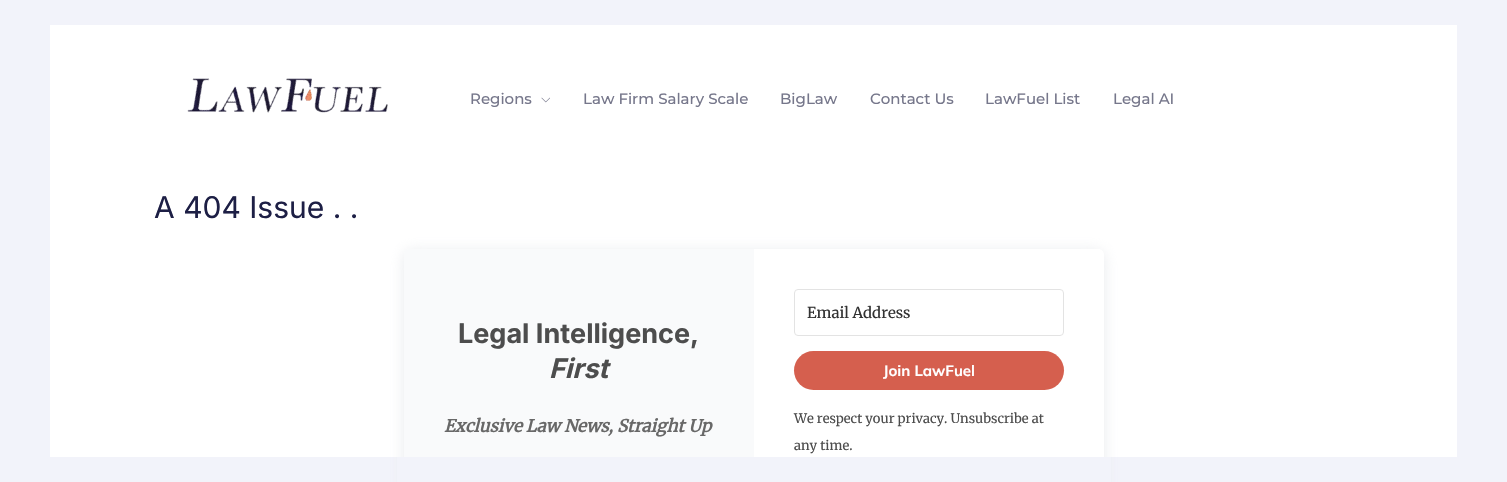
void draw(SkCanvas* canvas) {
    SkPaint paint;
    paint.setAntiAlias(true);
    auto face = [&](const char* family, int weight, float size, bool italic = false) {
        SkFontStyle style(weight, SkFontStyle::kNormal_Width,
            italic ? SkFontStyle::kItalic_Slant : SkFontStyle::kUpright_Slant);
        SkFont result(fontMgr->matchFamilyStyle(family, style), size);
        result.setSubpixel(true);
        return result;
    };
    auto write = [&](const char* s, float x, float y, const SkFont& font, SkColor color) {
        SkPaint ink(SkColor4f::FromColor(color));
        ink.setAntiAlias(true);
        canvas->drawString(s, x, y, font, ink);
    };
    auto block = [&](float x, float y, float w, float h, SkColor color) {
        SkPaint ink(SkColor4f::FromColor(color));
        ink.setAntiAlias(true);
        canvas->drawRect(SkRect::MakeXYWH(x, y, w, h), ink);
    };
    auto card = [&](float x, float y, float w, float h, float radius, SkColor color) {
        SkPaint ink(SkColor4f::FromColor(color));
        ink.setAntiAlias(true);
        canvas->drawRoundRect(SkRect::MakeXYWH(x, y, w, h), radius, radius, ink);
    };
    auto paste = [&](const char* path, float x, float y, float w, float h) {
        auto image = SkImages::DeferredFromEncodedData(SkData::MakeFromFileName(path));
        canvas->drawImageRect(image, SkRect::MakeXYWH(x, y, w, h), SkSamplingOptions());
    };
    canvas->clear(SkColorSetRGB(242, 243, 250));
    block(50, 25, 1407, 432, SK_ColorWHITE);
    paste("pic1.png", 187, 78, 201, 35);
    auto kFont1 = face("Montserrat", 100, 15);
    write("Regions", 470, 104, kFont1, SkColorSetRGB(118, 119, 139));
    paste("pic2.png", 541, 97, 9, 6);
    write("Law Firm Salary Scale", 583, 104, kFont1, SkColorSetRGB(118, 119, 139));
    write("BigLaw", 780, 104, kFont1, SkColorSetRGB(118, 119, 139));
    write("Contact Us", 870, 104, kFont1, SkColorSetRGB(118, 119, 139));
    write("LawFuel List", 985, 104, kFont1, SkColorSetRGB(118, 119, 139));
    write("Legal AI", 1113, 104, kFont1, SkColorSetRGB(118, 119, 139));
    auto kFont2 = face("Inter", 400, 30);
    write("A 404 Issue . .", 154, 218, kFont2, SkColorSetRGB(29, 31, 69));
    canvas->save();
    canvas->clipPath(SkPathBuilder(SkPathFillType::kEvenOdd).moveTo(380, 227).lineTo(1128, 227).lineTo(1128, 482).lineTo(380, 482).close().moveTo(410, 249).lineTo(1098, 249).cubicTo(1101.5f, 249, 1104, 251.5f, 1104, 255).lineTo(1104, 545).cubicTo(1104, 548.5f, 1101.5f, 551, 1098, 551).lineTo(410, 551).cubicTo(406.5f, 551, 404, 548.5f, 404, 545).lineTo(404, 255).cubicTo(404, 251.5f, 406.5f, 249, 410, 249).close().detach(), true);
    paint.setColor(SkColorSetARGB(128, 210, 214, 220));
    paint.setMaskFilter(SkMaskFilter::MakeBlur(kNormal_SkBlurStyle, 7.5f));
    canvas->drawRoundRect(SkRect::MakeXYWH(404, 251, 700, 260), 6, 6, paint);
    paint.setMaskFilter(nullptr);
    canvas->restore();
    paint.setColor(SkColorSetRGB(249, 250, 251));
    canvas->drawPath(SkPathBuilder().moveTo(410, 249).lineTo(754, 249).lineTo(754, 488).lineTo(410, 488).cubicTo(406.5f, 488, 404, 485.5f, 404, 482).lineTo(404, 255).cubicTo(404, 251.5f, 406.5f, 249, 410, 249).close().detach(), paint);
    auto kFont3 = face("Inter", 700, 27);
    write("Legal Intelligence,", 458, 343, kFont3, SkColorSetRGB(77, 77, 77));
    auto kFont4 = face("Inter", 700, 27, true);
    write("First", 549, 378, kFont4, SkColorSetRGB(77, 77, 77));
    auto kFont5 = face("Merriweather", 700, 17, true);
    write("Exclusive Law News, Straight Up", 444, 432, kFont5, SkColorSetRGB(104, 104, 104));
    paint.setStyle(SkPaint::kStroke_Style);
    paint.setStrokeWidth(1);
    paint.setColor(SkColorSetRGB(227, 227, 227));
    canvas->drawRoundRect(SkRect::MakeXYWH(794.5f, 289.5f, 269, 46), 3.5f, 3.5f, paint);
    auto kFont6 = face("Merriweather", 300, 15);
    write("Email Address", 807, 318, kFont6, SkColorSetRGB(51, 51, 51));
    card(794, 351, 270, 39, 19.5f, SkColorSetRGB(213, 95, 78));
    auto kFont7 = face("Mulish", 200, 15);
    write("Join LawFuel", 883, 376, kFont7, SK_ColorWHITE);
    auto kFont8 = face("Merriweather", 300, 13);
    write("We respect your privacy. Unsubscribe at", 794, 423, kFont8, SkColorSetRGB(77, 77, 77));
    write("any time.", 794, 450, kFont8, SkColorSetRGB(77, 77, 77));
    block(397, 457, 714, 25, SkColorSetRGB(242, 243, 250));
}
